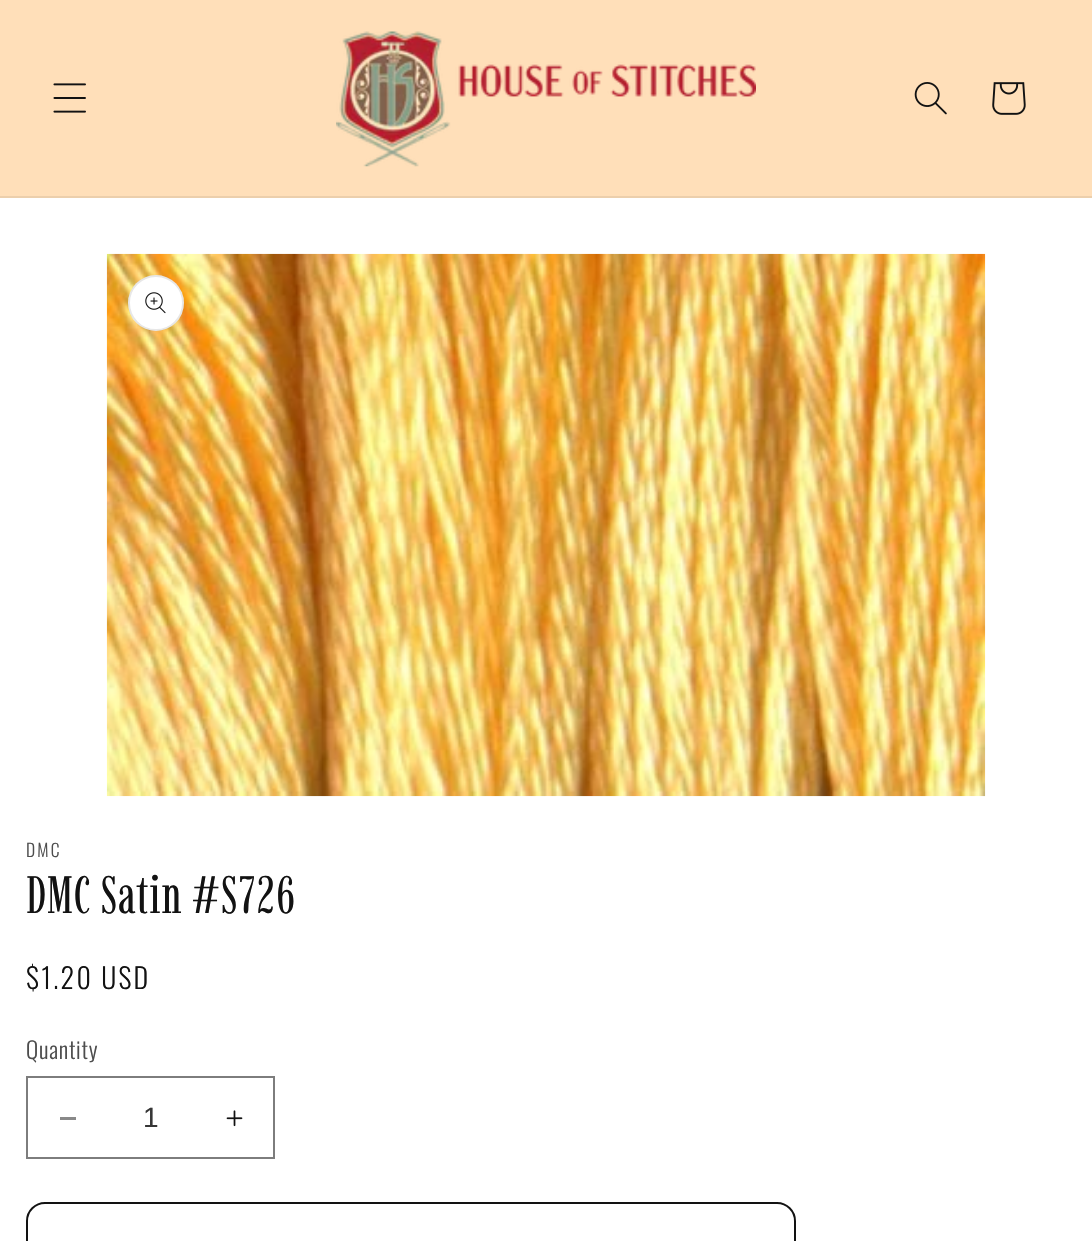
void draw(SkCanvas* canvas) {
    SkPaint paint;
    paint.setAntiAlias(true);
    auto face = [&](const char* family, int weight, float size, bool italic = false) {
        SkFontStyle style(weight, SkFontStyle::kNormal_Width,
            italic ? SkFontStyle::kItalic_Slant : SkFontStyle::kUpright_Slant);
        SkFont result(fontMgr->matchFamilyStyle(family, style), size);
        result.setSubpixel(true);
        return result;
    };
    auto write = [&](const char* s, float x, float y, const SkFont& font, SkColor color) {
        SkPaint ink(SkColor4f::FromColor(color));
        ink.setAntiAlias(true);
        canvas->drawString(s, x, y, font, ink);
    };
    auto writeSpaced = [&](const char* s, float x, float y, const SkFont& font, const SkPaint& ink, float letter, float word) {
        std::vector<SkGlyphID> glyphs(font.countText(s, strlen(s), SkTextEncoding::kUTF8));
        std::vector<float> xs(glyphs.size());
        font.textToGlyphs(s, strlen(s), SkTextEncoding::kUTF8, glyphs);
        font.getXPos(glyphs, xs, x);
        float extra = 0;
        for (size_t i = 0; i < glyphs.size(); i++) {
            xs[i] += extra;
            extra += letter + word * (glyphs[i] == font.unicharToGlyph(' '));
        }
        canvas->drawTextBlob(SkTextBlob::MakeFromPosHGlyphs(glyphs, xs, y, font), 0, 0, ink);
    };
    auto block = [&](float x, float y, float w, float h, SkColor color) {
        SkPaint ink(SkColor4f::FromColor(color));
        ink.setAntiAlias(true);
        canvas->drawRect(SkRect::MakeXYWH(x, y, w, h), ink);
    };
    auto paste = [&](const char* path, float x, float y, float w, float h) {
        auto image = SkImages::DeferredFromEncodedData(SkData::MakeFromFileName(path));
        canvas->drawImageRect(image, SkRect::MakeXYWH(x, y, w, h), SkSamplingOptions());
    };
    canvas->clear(SK_ColorWHITE);
    block(0, 0, 1092, 196, SkColorSetRGB(255, 223, 185));
    block(0, 196, 1092, 2, SkColorSetRGB(236, 207, 172));
    paste("pic1.png", 53, 83, 33, 30);
    paste("pic2.png", 336, 31, 420, 136);
    paste("pic3.png", 914, 82, 33, 33);
    paste("pic4.png", 992, 82, 34, 33);
    paste("pic5.png", 106, 253, 880, 544);
    paint.setColor(SK_ColorWHITE);
    canvas->drawCircle(156, 303, 28, paint);
    paint.setStyle(SkPaint::kStroke_Style);
    paint.setStrokeWidth(2);
    paint.setColor(SkColorSetARGB(26, 18, 18, 18));
    canvas->drawCircle(156, 303, 27, paint);
    paste("pic6.png", 145, 292, 21, 22);
    auto kFont1 = face("Oswald", 300, 17.5f);
    paint.setStyle(SkPaint::kFill_Style);
    paint.setColor(SkColorSetRGB(77, 77, 77));
    writeSpaced("DMC", 26, 857, kFont1, paint, 2.25f, 0);
    auto kFont2 = face("Imbue", 400, 52.5f);
    paint.setColor(SkColorSetRGB(18, 18, 18));
    writeSpaced("DMC Satin #S726", 26, 913, kFont2, paint, 1, 0);
    auto kFont3 = face("Oswald", 300, 28);
    writeSpaced("$1.20 USD", 26, 989, kFont3, paint, 2.25f, 0);
    auto kFont4 = face("Oswald", 300, 23);
    paint.setColor(SkColorSetRGB(77, 77, 77));
    writeSpaced("Quantity", 26, 1059, kFont4, paint, 0.75f, 0);
    block(60, 1117, 16, 3, SkColorSetRGB(137, 137, 137));
    paste("pic7.png", 226, 1110, 17, 17);
    paint.setStyle(SkPaint::kStroke_Style);
    paint.setColor(SkColorSetRGB(125, 125, 125));
    canvas->drawRect(SkRect::MakeXYWH(27, 1077, 247, 81), paint);
    auto kFont5 = face("Liberation Sans", 400, 28);
    write("1", 143, 1127, kFont5, SkColorSetRGB(54, 54, 54));
    paint.setColor(SkColorSetRGB(18, 18, 18));
    canvas->drawRoundRect(SkRect::MakeXYWH(27, 1203, 768, 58), 18, 18, paint);
}
